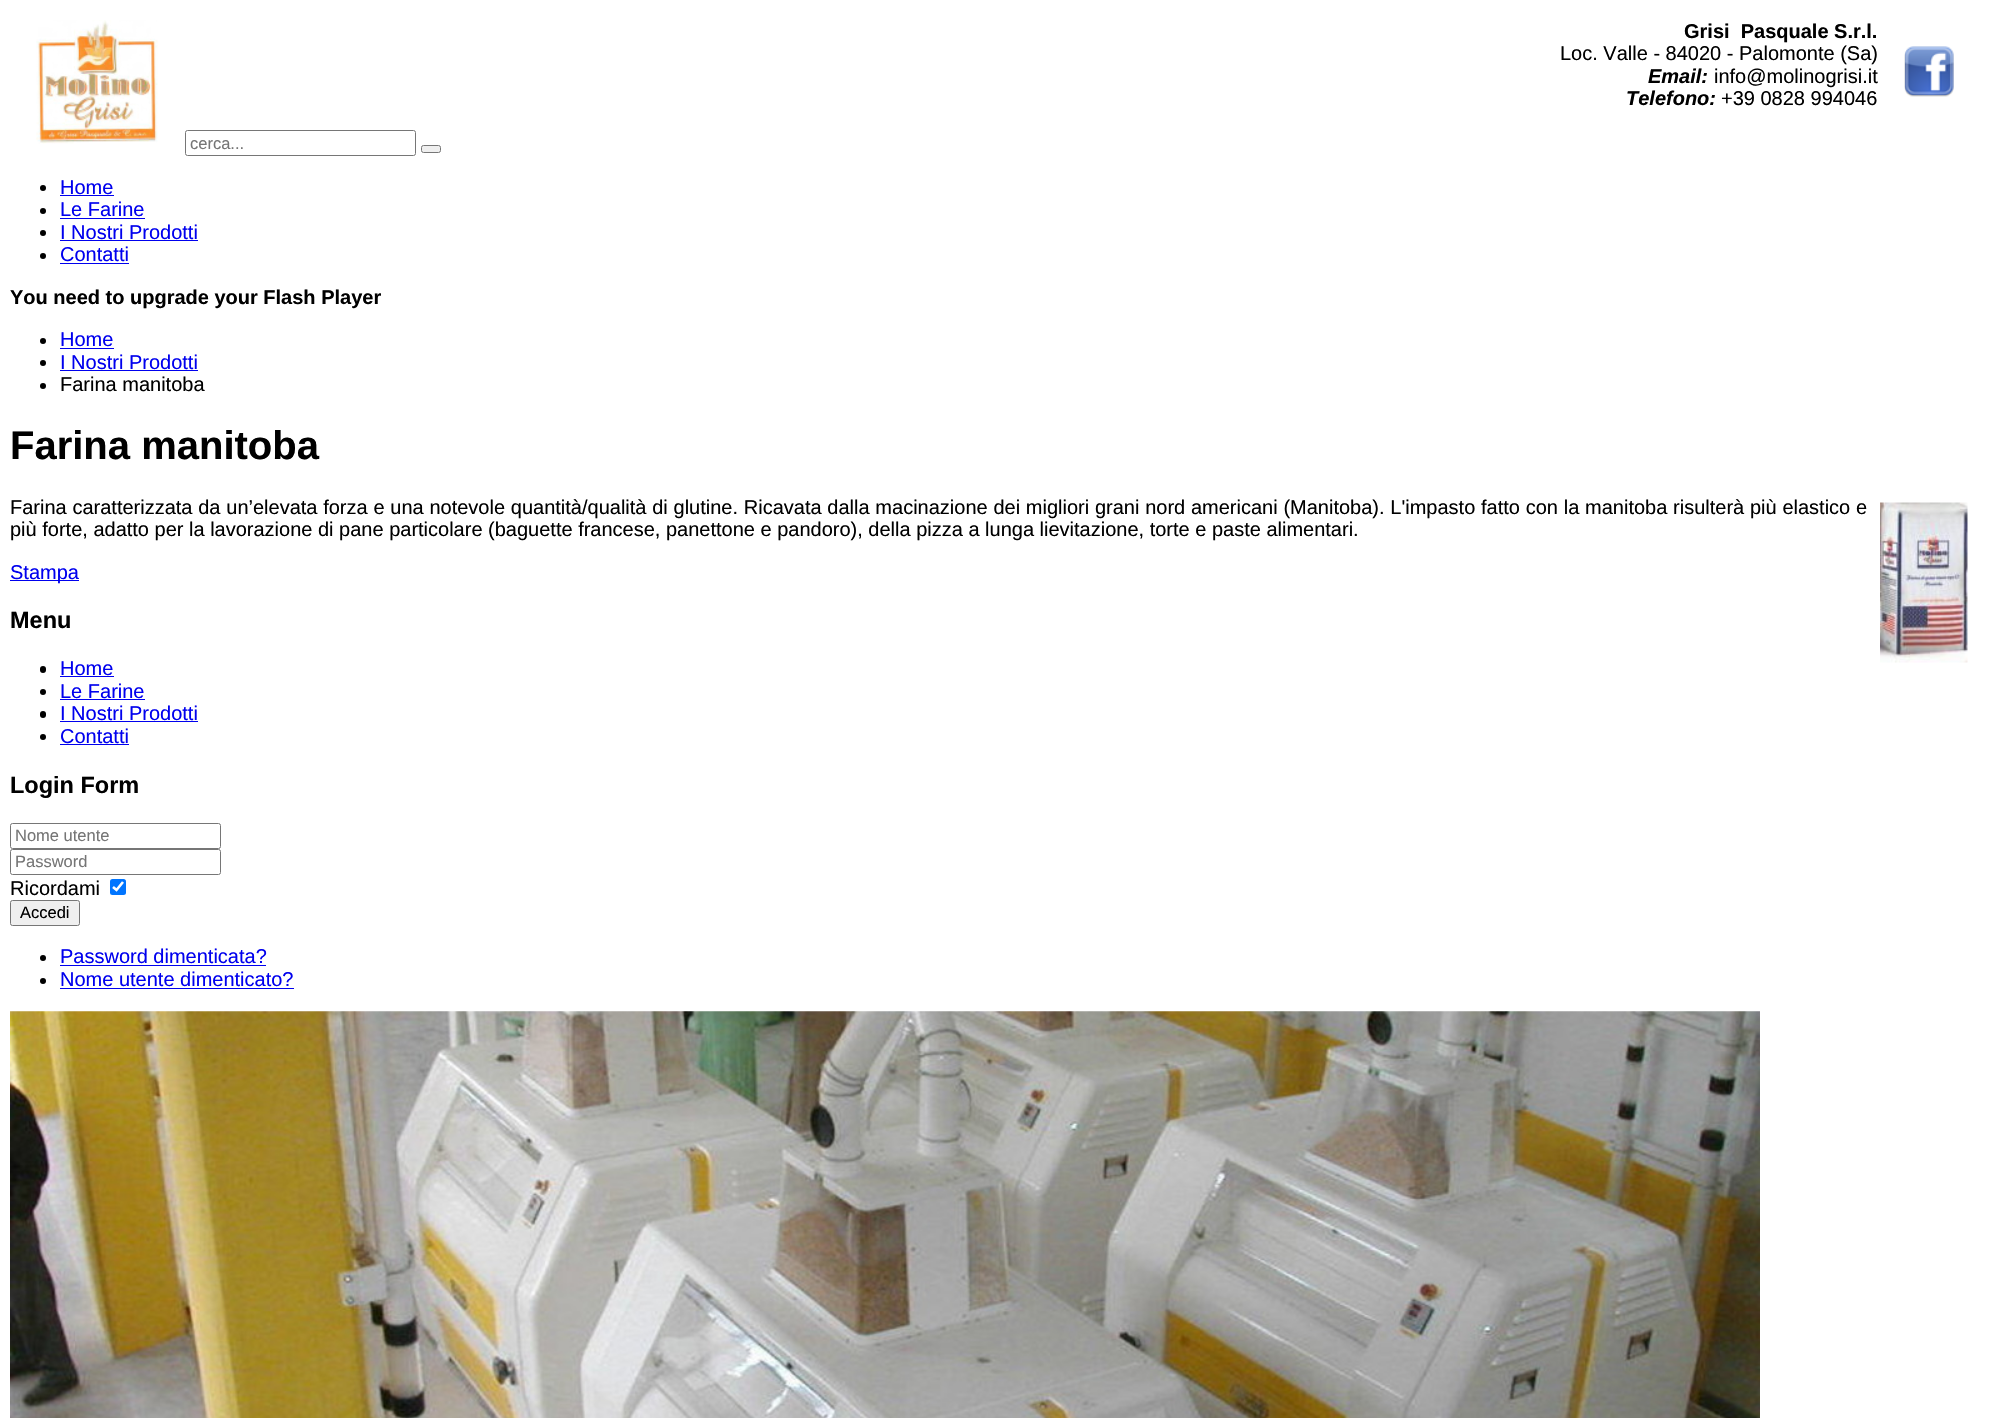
void draw(SkCanvas* canvas) {
    SkPaint paint;
    paint.setAntiAlias(true);
    auto face = [&](const char* family, int weight, float size, bool italic = false) {
        SkFontStyle style(weight, SkFontStyle::kNormal_Width,
            italic ? SkFontStyle::kItalic_Slant : SkFontStyle::kUpright_Slant);
        SkFont result(fontMgr->matchFamilyStyle(family, style), size);
        result.setSubpixel(true);
        return result;
    };
    auto write = [&](const char* s, float x, float y, const SkFont& font, SkColor color) {
        SkPaint ink(SkColor4f::FromColor(color));
        ink.setAntiAlias(true);
        canvas->drawString(s, x, y, font, ink);
    };
    auto writeSpaced = [&](const char* s, float x, float y, const SkFont& font, const SkPaint& ink, float letter, float word) {
        std::vector<SkGlyphID> glyphs(font.countText(s, strlen(s), SkTextEncoding::kUTF8));
        std::vector<float> xs(glyphs.size());
        font.textToGlyphs(s, strlen(s), SkTextEncoding::kUTF8, glyphs);
        font.getXPos(glyphs, xs, x);
        float extra = 0;
        for (size_t i = 0; i < glyphs.size(); i++) {
            xs[i] += extra;
            extra += letter + word * (glyphs[i] == font.unicharToGlyph(' '));
        }
        canvas->drawTextBlob(SkTextBlob::MakeFromPosHGlyphs(glyphs, xs, y, font), 0, 0, ink);
    };
    auto block = [&](float x, float y, float w, float h, SkColor color) {
        SkPaint ink(SkColor4f::FromColor(color));
        ink.setAntiAlias(true);
        canvas->drawRect(SkRect::MakeXYWH(x, y, w, h), ink);
    };
    auto card = [&](float x, float y, float w, float h, float radius, SkColor color) {
        SkPaint ink(SkColor4f::FromColor(color));
        ink.setAntiAlias(true);
        canvas->drawRoundRect(SkRect::MakeXYWH(x, y, w, h), radius, radius, ink);
    };
    auto paste = [&](const char* path, float x, float y, float w, float h) {
        auto image = SkImages::DeferredFromEncodedData(SkData::MakeFromFileName(path));
        canvas->drawImageRect(image, SkRect::MakeXYWH(x, y, w, h), SkSamplingOptions());
    };
    canvas->clear(SK_ColorWHITE);
    paste("pic1.png", 36, 20, 122, 124);
    auto kFont1 = face("Liberation Sans", 700, 20);
    write("Grisi  Pasquale S.r.l.", 1684, 38, kFont1, SK_ColorBLACK);
    paste("pic2.png", 1904, 46, 50, 51);
    auto kFont2 = face("Liberation Sans", 400, 20);
    write("Loc. Valle - 84020 - Palomonte (Sa)", 1560, 60, kFont2, SK_ColorBLACK);
    auto kFont3 = face("Liberation Sans", 700, 20, true);
    write("Email:", 1648, 83, kFont3, SK_ColorBLACK);
    write("info@molinogrisi.it", 1714, 83, kFont2, SK_ColorBLACK);
    write("Telefono:", 1626, 105, kFont3, SK_ColorBLACK);
    write("+39 0828 994046", 1721, 105, kFont2, SK_ColorBLACK);
    paint.setStyle(SkPaint::kStroke_Style);
    paint.setStrokeWidth(1);
    paint.setColor(SkColorSetRGB(118, 118, 118));
    canvas->drawRoundRect(SkRect::MakeXYWH(185.5f, 130.5f, 230, 25), 2, 2, paint);
    auto kFont4 = face("Liberation Sans", 400, 16.5f);
    write("cerca...", 190, 149, kFont4, SkColorSetRGB(117, 117, 117));
    paint.setStyle(SkPaint::kFill_Style);
    paint.setColor(SkColorSetRGB(239, 239, 239));
    canvas->drawRoundRect(SkRect::MakeXYWH(421.5f, 145.5f, 19, 7), 2, 2, paint);
    paint.setStyle(SkPaint::kStroke_Style);
    paint.setColor(SkColorSetRGB(118, 118, 118));
    canvas->drawRoundRect(SkRect::MakeXYWH(421.5f, 145.5f, 19, 7), 2, 2, paint);
    paint.setStyle(SkPaint::kFill_Style);
    paint.setColor(SK_ColorBLACK);
    canvas->drawCircle(43, 188, 3, paint);
    write("Home", 60, 194, kFont2, SkColorSetRGB(0, 0, 238));
    block(60, 195, 54, 1, SkColorSetRGB(0, 0, 238));
    canvas->drawCircle(43, 211, 3, paint);
    write("Le Farine", 60, 216, kFont2, SkColorSetRGB(0, 0, 238));
    block(60, 218, 85, 1, SkColorSetRGB(0, 0, 238));
    canvas->drawCircle(43, 233, 3, paint);
    write("I Nostri Prodotti", 60, 239, kFont2, SkColorSetRGB(0, 0, 238));
    block(60, 240, 138, 1, SkColorSetRGB(0, 0, 238));
    canvas->drawCircle(43, 256, 3, paint);
    write("Contatti", 60, 261, kFont2, SkColorSetRGB(0, 0, 238));
    block(60, 263, 69, 1, SkColorSetRGB(0, 0, 238));
    write("You need to upgrade your Flash Player", 10, 304, kFont1, SK_ColorBLACK);
    canvas->drawCircle(43, 341, 3, paint);
    write("Home", 60, 346, kFont2, SkColorSetRGB(0, 0, 238));
    block(60, 348, 54, 1, SkColorSetRGB(0, 0, 238));
    canvas->drawCircle(43, 363, 3, paint);
    write("I Nostri Prodotti", 60, 369, kFont2, SkColorSetRGB(0, 0, 238));
    block(60, 370, 138, 1, SkColorSetRGB(0, 0, 238));
    canvas->drawCircle(43, 386, 3, paint);
    write("Farina manitoba", 60, 391, kFont2, SK_ColorBLACK);
    auto kFont5 = face("Liberation Sans", 700, 40);
    write("Farina manitoba", 10, 459, kFont5, SK_ColorBLACK);
    writeSpaced("Farina caratterizzata da un’elevata forza e una notevole quantità/qualità di glutine. Ricavata dalla macinazione dei migliori grani nord americani (Manitoba). L'impasto fatto con la manitoba risulterà più elastico e", 10, 514, kFont2, paint, 0, 0.2f);
    paste("pic3.png", 1880, 502, 88, 161);
    write("più forte, adatto per la lavorazione di pane particolare (baguette francese, panettone e pandoro), della pizza a lunga lievitazione, torte e paste alimentari.", 10, 536, kFont2, SK_ColorBLACK);
    block(10, 580, 69, 1, SkColorSetRGB(0, 0, 238));
    write("Stampa", 10, 579, kFont2, SkColorSetRGB(0, 0, 238));
    auto kFont6 = face("Liberation Sans", 700, 23.5f);
    write("Menu", 10, 628, kFont6, SK_ColorBLACK);
    card(40, 666, 6, 7, 3, SK_ColorBLACK);
    write("Home", 60, 675, kFont2, SkColorSetRGB(0, 0, 238));
    block(60, 676, 54, 1, SkColorSetRGB(0, 0, 238));
    canvas->drawCircle(43, 692, 3, paint);
    write("Le Farine", 60, 698, kFont2, SkColorSetRGB(0, 0, 238));
    block(60, 699, 85, 1, SkColorSetRGB(0, 0, 238));
    card(40, 711, 6, 7, 3, SK_ColorBLACK);
    write("I Nostri Prodotti", 60, 720, kFont2, SkColorSetRGB(0, 0, 238));
    block(60, 721, 138, 1, SkColorSetRGB(0, 0, 238));
    canvas->drawCircle(43, 737, 3, paint);
    write("Contatti", 60, 743, kFont2, SkColorSetRGB(0, 0, 238));
    block(60, 744, 69, 1, SkColorSetRGB(0, 0, 238));
    write("Login Form", 10, 793, kFont6, SK_ColorBLACK);
    paint.setStyle(SkPaint::kStroke_Style);
    paint.setColor(SkColorSetRGB(118, 118, 118));
    canvas->drawRoundRect(SkRect::MakeXYWH(10.5f, 823.5f, 210, 25), 2, 2, paint);
    write("Nome utente", 15, 841, kFont4, SkColorSetRGB(117, 117, 117));
    canvas->drawRoundRect(SkRect::MakeXYWH(10.5f, 849.5f, 210, 25), 2, 2, paint);
    write("Password", 15, 867, kFont4, SkColorSetRGB(117, 117, 117));
    write("Ricordami", 10, 895, kFont2, SK_ColorBLACK);
    card(110, 879, 16, 16, 2.5f, SkColorSetRGB(0, 117, 255));
    paint.setStrokeWidth(2.6f);
    paint.setColor(SK_ColorWHITE);
    canvas->drawPath(SkPathBuilder().moveTo(113, 887).lineTo(116.5f, 890).lineTo(123, 882).detach(), paint);
    paint.setStyle(SkPaint::kFill_Style);
    paint.setColor(SkColorSetRGB(239, 239, 239));
    canvas->drawRoundRect(SkRect::MakeXYWH(10.5f, 900.5f, 69, 25), 2, 2, paint);
    paint.setStyle(SkPaint::kStroke_Style);
    paint.setStrokeWidth(1);
    paint.setColor(SkColorSetRGB(118, 118, 118));
    canvas->drawRoundRect(SkRect::MakeXYWH(10.5f, 900.5f, 69, 25), 2, 2, paint);
    write("Accedi", 20, 918, kFont4, SK_ColorBLACK);
    paint.setStyle(SkPaint::kFill_Style);
    paint.setColor(SK_ColorBLACK);
    canvas->drawCircle(43, 958, 3, paint);
    write("Password dimenticata?", 60, 963, kFont2, SkColorSetRGB(0, 0, 238));
    block(60, 965, 206, 1, SkColorSetRGB(0, 0, 238));
    canvas->drawCircle(43, 981, 3, paint);
    write("Nome utente dimenticato?", 60, 986, kFont2, SkColorSetRGB(0, 0, 238));
    block(60, 988, 234, 1, SkColorSetRGB(0, 0, 238));
    paste("pic4.png", 10, 1011, 1750, 407);
}
